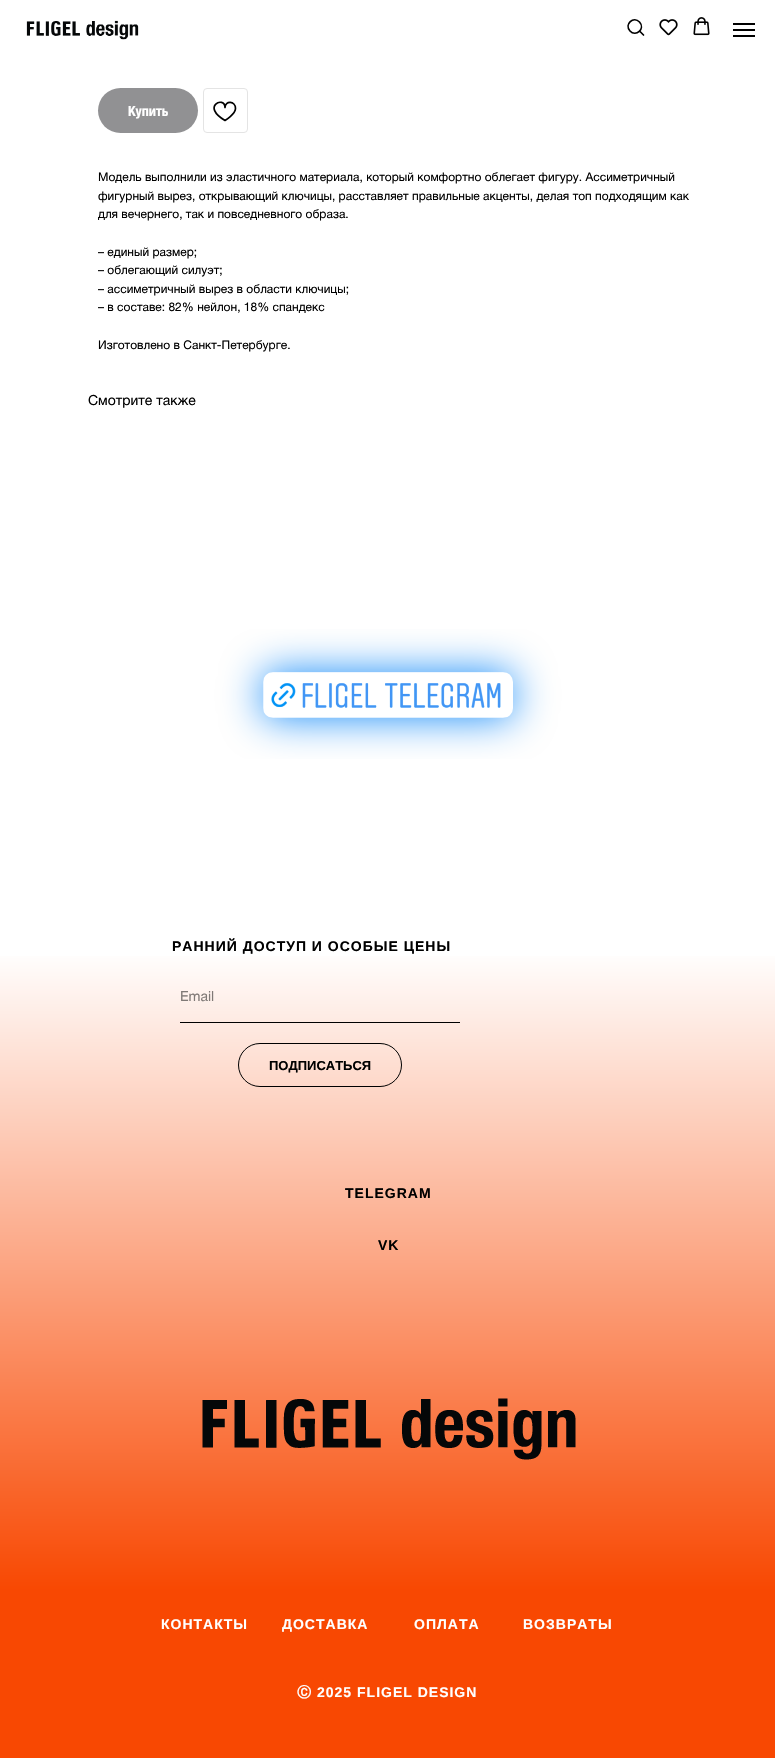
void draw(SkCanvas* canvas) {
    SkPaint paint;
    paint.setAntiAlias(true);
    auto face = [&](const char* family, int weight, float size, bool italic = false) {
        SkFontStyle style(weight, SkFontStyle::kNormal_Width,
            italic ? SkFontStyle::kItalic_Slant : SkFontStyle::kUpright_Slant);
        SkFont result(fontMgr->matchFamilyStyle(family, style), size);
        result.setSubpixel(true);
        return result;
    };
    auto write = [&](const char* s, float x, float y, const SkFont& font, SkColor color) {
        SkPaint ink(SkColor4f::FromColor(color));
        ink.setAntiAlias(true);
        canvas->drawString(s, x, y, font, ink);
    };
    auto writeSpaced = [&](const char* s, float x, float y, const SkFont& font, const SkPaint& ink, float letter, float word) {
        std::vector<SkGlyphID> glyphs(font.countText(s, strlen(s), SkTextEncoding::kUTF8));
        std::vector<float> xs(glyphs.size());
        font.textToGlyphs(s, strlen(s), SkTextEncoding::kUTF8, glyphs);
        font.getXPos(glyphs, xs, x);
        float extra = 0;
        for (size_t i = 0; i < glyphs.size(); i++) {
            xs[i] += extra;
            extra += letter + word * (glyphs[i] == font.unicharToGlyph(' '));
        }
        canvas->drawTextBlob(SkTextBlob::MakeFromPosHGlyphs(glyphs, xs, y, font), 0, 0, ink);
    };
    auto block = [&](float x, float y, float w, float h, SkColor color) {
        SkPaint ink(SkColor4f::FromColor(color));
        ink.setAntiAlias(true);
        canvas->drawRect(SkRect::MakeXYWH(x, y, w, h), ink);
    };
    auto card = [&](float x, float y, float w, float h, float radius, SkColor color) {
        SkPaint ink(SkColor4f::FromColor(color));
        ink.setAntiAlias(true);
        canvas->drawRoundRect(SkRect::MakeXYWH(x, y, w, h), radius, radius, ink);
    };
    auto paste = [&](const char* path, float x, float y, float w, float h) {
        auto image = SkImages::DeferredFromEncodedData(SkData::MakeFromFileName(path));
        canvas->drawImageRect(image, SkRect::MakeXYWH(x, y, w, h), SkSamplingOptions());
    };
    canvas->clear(SK_ColorWHITE);
    paste("pic1.png", 26, 20, 113, 20);
    paint.setStyle(SkPaint::kStroke_Style);
    paint.setStrokeWidth(1.7f);
    paint.setColor(SK_ColorBLACK);
    canvas->drawPath(SkPathBuilder().moveTo(639.5f, 22).cubicTo(645.5f, 28.5f, 636, 37.5f, 630, 31).cubicTo(624, 24.5f, 633.5f, 15.5f, 639.5f, 22).close().detach(), paint);
    paint.setStrokeCap(SkPaint::kRound_Cap);
    canvas->drawPath(SkPathBuilder().moveTo(640, 31.5f).lineTo(643.5f, 35).detach(), paint);
    paste("pic2.png", 659, 19, 19, 17);
    paste("pic3.png", 693, 17, 17, 19);
    block(733, 23, 22, 2, SK_ColorBLACK);
    block(733, 29, 22, 2, SK_ColorBLACK);
    block(733, 35, 22, 2, SK_ColorBLACK);
    card(98, 88, 100, 45, 22.5f, SkColorSetRGB(145, 145, 147));
    auto kFont1 = face("Helvetica Neue", 700, 14);
    write("Купить", 128, 116, kFont1, SK_ColorWHITE);
    paint.setStrokeWidth(1);
    paint.setStrokeCap(SkPaint::kButt_Cap);
    paint.setColor(SkColorSetRGB(228, 228, 228));
    canvas->drawRoundRect(SkRect::MakeXYWH(203.5f, 88.5f, 44, 44), 3.5f, 3.5f, paint);
    paint.setStrokeWidth(1.7f);
    paint.setStrokeJoin(SkPaint::kRound_Join);
    paint.setColor(SK_ColorBLACK);
    canvas->drawPath(SkPathBuilder().moveTo(235.5f, 108.5f).cubicTo(235.5f, 114, 225, 120.5f, 225, 120.5f).cubicTo(200.5f, 106, 225, 95.5f, 225, 107.5f).cubicTo(225, 100.5f, 235.5f, 100.5f, 235.5f, 108.5f).close().detach(), paint);
    auto kFont2 = face("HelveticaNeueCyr", 400, 12);
    write("Модель выполнили из эластичного материала, который комфортно облегает фигуру. Ассиметричный", 98, 181, kFont2, SK_ColorBLACK);
    write("фигурный вырез, открывающий ключицы, расставляет правильные акценты, делая топ подходящим как", 98, 200, kFont2, SK_ColorBLACK);
    write("для вечернего, так и повседневного образа.", 98, 218, kFont2, SK_ColorBLACK);
    write("– единый размер;", 98, 256, kFont2, SK_ColorBLACK);
    write("– облегающий силуэт;", 98, 274, kFont2, SK_ColorBLACK);
    write("– ассиметричный вырез в области ключицы;", 98, 293, kFont2, SK_ColorBLACK);
    write("– в составе: 82% нейлон, 18% спандекс", 98, 311, kFont2, SK_ColorBLACK);
    write("Изготовлено в Санкт-Петербурге.", 98, 349, kFont2, SK_ColorBLACK);
    auto kFont3 = face("HelveticaNeueCyr", 400, 14);
    write("Смотрите также", 88, 405, kFont3, SK_ColorBLACK);
    canvas->save();
    canvas->clipRect(SkRect::MakeXYWH(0, 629, 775, 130));
    paint.setStyle(SkPaint::kFill_Style);
    paint.setColor(SkColorSetRGB(20, 139, 250));
    paint.setMaskFilter(SkMaskFilter::MakeBlur(kNormal_SkBlurStyle, 20));
    canvas->drawRoundRect(SkRect::MakeXYWH(263, 672, 250, 46), 10, 10, paint);
    paint.setMaskFilter(nullptr);
    canvas->restore();
    paste("pic4.png", 263, 672, 250, 46);
    {
        const SkColor colors[] = {SkColorSetRGB(248, 72, 2), SK_ColorWHITE};
        const float stops[] = {0.19f, 0.92f};
        const SkPoint ends[] = {{388, 1758}, {388, 879}};
        paint.setShader(SkGradientShader::MakeLinear(ends, colors, stops, 2, SkTileMode::kClamp));
        paint.setAlpha(255);
    }
    canvas->drawRect(SkRect::MakeXYWH(0, 956, 775, 802), paint);
    auto kFont4 = face("Liberation Sans", 700, 14);
    paint.setShader(nullptr);
    paint.setColor(SK_ColorBLACK);
    writeSpaced("РАННИЙ ДОСТУП И ОСОБЫЕ ЦЕНЫ", 172, 951, kFont4, paint, 1, 0);
    block(180, 1022, 280, 1, SK_ColorBLACK);
    write("Email", 180, 1001, kFont3, SkColorSetRGB(127, 121, 118));
    paint.setStyle(SkPaint::kStroke_Style);
    paint.setStrokeWidth(1);
    paint.setStrokeJoin(SkPaint::kMiter_Join);
    canvas->drawRoundRect(SkRect::MakeXYWH(238.5f, 1043.5f, 163, 43), 21.5f, 21.5f, paint);
    auto kFont5 = face("Liberation Sans", 700, 13);
    write("ПОДПИСАТЬСЯ", 269, 1070, kFont5, SK_ColorBLACK);
    paint.setStyle(SkPaint::kFill_Style);
    writeSpaced("TELEGRAM", 345, 1198, kFont4, paint, 1, 0);
    writeSpaced("VK", 378, 1250, kFont4, paint, 1, 0);
    paste("pic5.png", 202, 1398, 374, 62);
    paint.setColor(SK_ColorWHITE);
    writeSpaced("КОНТАКТЫ", 161, 1629, kFont4, paint, 1, 0);
    writeSpaced("ДОСТАВКА", 282, 1629, kFont4, paint, 1, 0);
    writeSpaced("ОПЛАТА", 414, 1629, kFont4, paint, 1, 0);
    writeSpaced("ВОЗВРАТЫ", 523, 1629, kFont4, paint, 1, 0);
    auto kFont6 = face("WenQuanYi Zen Hei", 700, 14);
    writeSpaced("Ⓒ", 297, 1697, kFont6, paint, 1, 0);
    writeSpaced("2025 FLIGEL DESIGN", 317, 1697, kFont4, paint, 1, 0);
}
